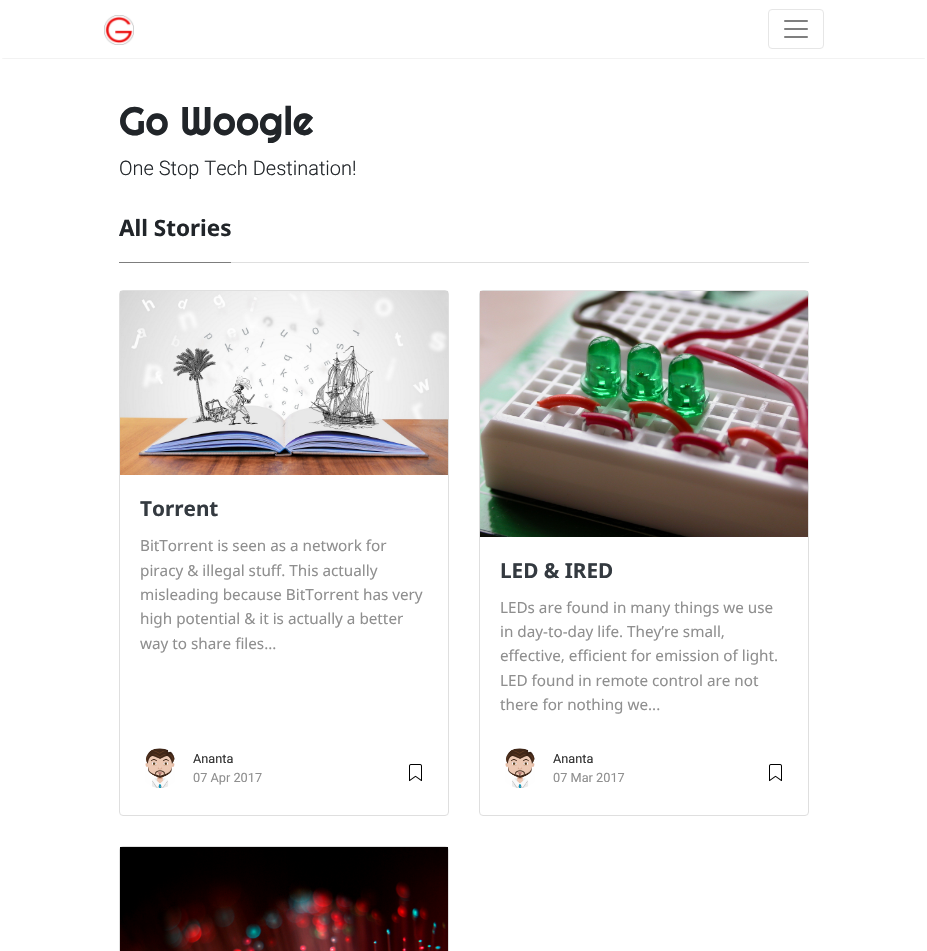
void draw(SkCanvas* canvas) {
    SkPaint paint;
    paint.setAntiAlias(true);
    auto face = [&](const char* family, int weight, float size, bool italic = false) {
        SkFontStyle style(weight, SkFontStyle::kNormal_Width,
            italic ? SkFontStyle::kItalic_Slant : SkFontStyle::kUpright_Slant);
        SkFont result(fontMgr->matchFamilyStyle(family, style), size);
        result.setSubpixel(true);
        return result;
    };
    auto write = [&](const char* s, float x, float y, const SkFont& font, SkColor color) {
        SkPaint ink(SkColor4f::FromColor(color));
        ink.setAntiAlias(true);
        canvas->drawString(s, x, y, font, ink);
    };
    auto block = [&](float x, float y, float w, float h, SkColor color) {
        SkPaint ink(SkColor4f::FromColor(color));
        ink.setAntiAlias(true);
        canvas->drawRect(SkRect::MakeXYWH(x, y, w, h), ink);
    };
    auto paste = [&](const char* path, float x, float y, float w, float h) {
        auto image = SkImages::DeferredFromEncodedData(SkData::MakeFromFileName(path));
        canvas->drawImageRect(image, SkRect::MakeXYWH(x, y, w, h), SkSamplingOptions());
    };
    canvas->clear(SK_ColorWHITE);
    canvas->save();
    canvas->clipRect(SkRect::MakeXYWH(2, 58, 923, 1));
    paint.setColor(SkColorSetARGB(38, 0, 0, 0));
    paint.setMaskFilter(SkMaskFilter::MakeBlur(kNormal_SkBlurStyle, 1));
    canvas->drawRect(SkRect::MakeXYWH(2, 4, 923, 54), paint);
    paint.setMaskFilter(nullptr);
    canvas->restore();
    paste("pic1.png", 104, 15, 30, 30);
    paint.setStyle(SkPaint::kStroke_Style);
    paint.setStrokeWidth(1);
    paint.setColor(SkColorSetRGB(230, 230, 230));
    canvas->drawRoundRect(SkRect::MakeXYWH(768.5f, 9.5f, 55, 39), 3.5f, 3.5f, paint);
    paste("pic2.png", 784, 20, 24, 18);
    auto kFont1 = face("Righteous", 400, 40);
    write("Go Woogle", 119, 135, kFont1, SkColorSetRGB(33, 37, 41));
    auto kFont2 = face("Roboto", 300, 20);
    write("One Stop Tech Destination!", 119, 175, kFont2, SkColorSetRGB(33, 37, 41));
    block(231, 262, 578, 1, SkColorSetRGB(223, 223, 223));
    block(119, 262, 112, 1, SkColorSetRGB(125, 125, 125));
    auto kFont3 = face("Noto Sans", 700, 22.5f);
    write("All Stories", 119, 236, kFont3, SkColorSetRGB(33, 37, 41));
    paint.setColor(SkColorSetRGB(223, 223, 223));
    canvas->drawRoundRect(SkRect::MakeXYWH(119.5f, 290.5f, 329, 525), 3.5f, 3.5f, paint);
    paste("pic3.png", 120, 291, 328, 184);
    auto kFont4 = face("Noto Sans", 700, 20.75f);
    write("Torrent", 140, 516, kFont4, SkColorSetRGB(52, 58, 64));
    auto kFont5 = face("Noto Sans", 400, 15.25f);
    write("BitTorrent is seen as a network for", 140, 551, kFont5, SkColorSetRGB(143, 143, 143));
    write("piracy & illegal stuff. This actually", 140, 576, kFont5, SkColorSetRGB(143, 143, 143));
    write("misleading because BitTorrent has very", 140, 600, kFont5, SkColorSetRGB(143, 143, 143));
    write("high potential & it is actually a better", 140, 624, kFont5, SkColorSetRGB(143, 143, 143));
    write("way to share files...", 140, 649, kFont5, SkColorSetRGB(143, 143, 143));
    paste("pic4.png", 145, 748, 30, 40);
    auto kFont6 = face("Roboto", 400, 12.75f);
    write("Ananta", 193, 763, kFont6, SkColorSetRGB(51, 51, 51));
    write("07 Apr 2017", 193, 782, kFont6, SkColorSetRGB(143, 143, 143));
    paste("pic5.png", 409, 764, 13, 18);
    canvas->drawRoundRect(SkRect::MakeXYWH(479.5f, 290.5f, 329, 525), 3.5f, 3.5f, paint);
    paste("pic6.png", 480, 291, 328, 246);
    write("LED & IRED", 500, 578, kFont4, SkColorSetRGB(52, 58, 64));
    write("LEDs are found in many things we use", 500, 613, kFont5, SkColorSetRGB(143, 143, 143));
    write("in day-to-day life. They’re small,", 500, 637, kFont5, SkColorSetRGB(143, 143, 143));
    write("effective, efficient for emission of light.", 500, 661, kFont5, SkColorSetRGB(143, 143, 143));
    write("LED found in remote control are not", 500, 686, kFont5, SkColorSetRGB(143, 143, 143));
    write("there for nothing we...", 500, 710, kFont5, SkColorSetRGB(143, 143, 143));
    paste("pic7.png", 505, 748, 30, 40);
    write("Ananta", 553, 763, kFont6, SkColorSetRGB(51, 51, 51));
    write("07 Mar 2017", 553, 782, kFont6, SkColorSetRGB(143, 143, 143));
    paste("pic5.png", 769, 764, 13, 18);
    canvas->drawRoundRect(SkRect::MakeXYWH(119.5f, 846.5f, 329, 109), 3.5f, 3.5f, paint);
    paste("pic8.png", 120, 847, 328, 104);
}
